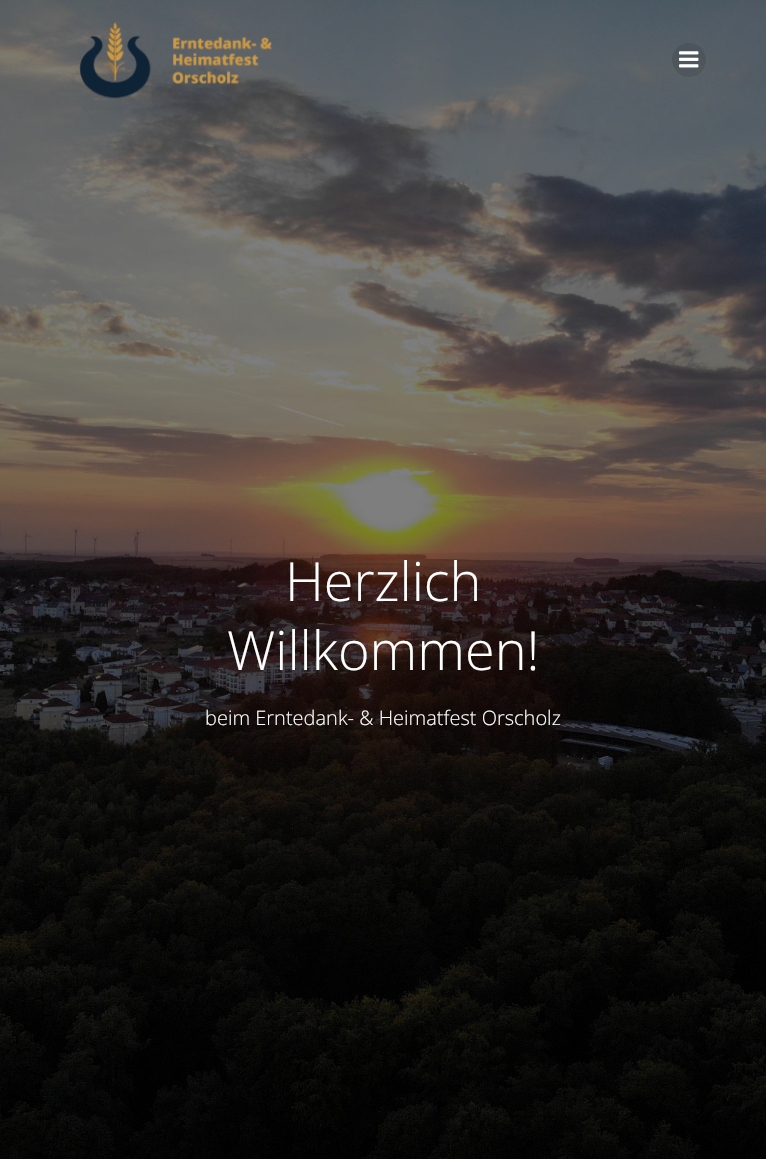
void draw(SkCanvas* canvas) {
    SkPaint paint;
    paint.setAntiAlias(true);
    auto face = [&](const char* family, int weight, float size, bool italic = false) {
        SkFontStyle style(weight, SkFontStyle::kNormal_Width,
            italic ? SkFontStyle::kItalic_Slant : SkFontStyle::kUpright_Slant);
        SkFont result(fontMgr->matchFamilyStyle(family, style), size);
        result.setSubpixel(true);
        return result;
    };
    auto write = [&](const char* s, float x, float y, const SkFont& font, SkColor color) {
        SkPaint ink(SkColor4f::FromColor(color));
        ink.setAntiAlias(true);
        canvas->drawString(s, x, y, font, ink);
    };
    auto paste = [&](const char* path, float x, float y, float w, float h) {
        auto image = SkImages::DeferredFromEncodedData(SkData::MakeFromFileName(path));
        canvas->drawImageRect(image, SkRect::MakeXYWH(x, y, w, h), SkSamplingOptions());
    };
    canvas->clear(SK_ColorWHITE);
    paste("pic3.png", 0, 0, 766, 1159);
    paste("pic1.png", 79, 22, 193, 77);
    paint.setColor(SkColorSetARGB(26, 0, 0, 0));
    canvas->drawCircle(689, 60, 17, paint);
    paste("pic2.png", 679, 51, 20, 17);
    auto kFont1 = face("Open Sans", 300, 54);
    write("Herzlich", 285, 601, kFont1, SK_ColorWHITE);
    write("Willkommen!", 227, 670, kFont1, SK_ColorWHITE);
    auto kFont2 = face("Open Sans", 300, 20);
    write("beim Erntedank- & Heimatfest Orscholz", 205, 725, kFont2, SK_ColorWHITE);
}
